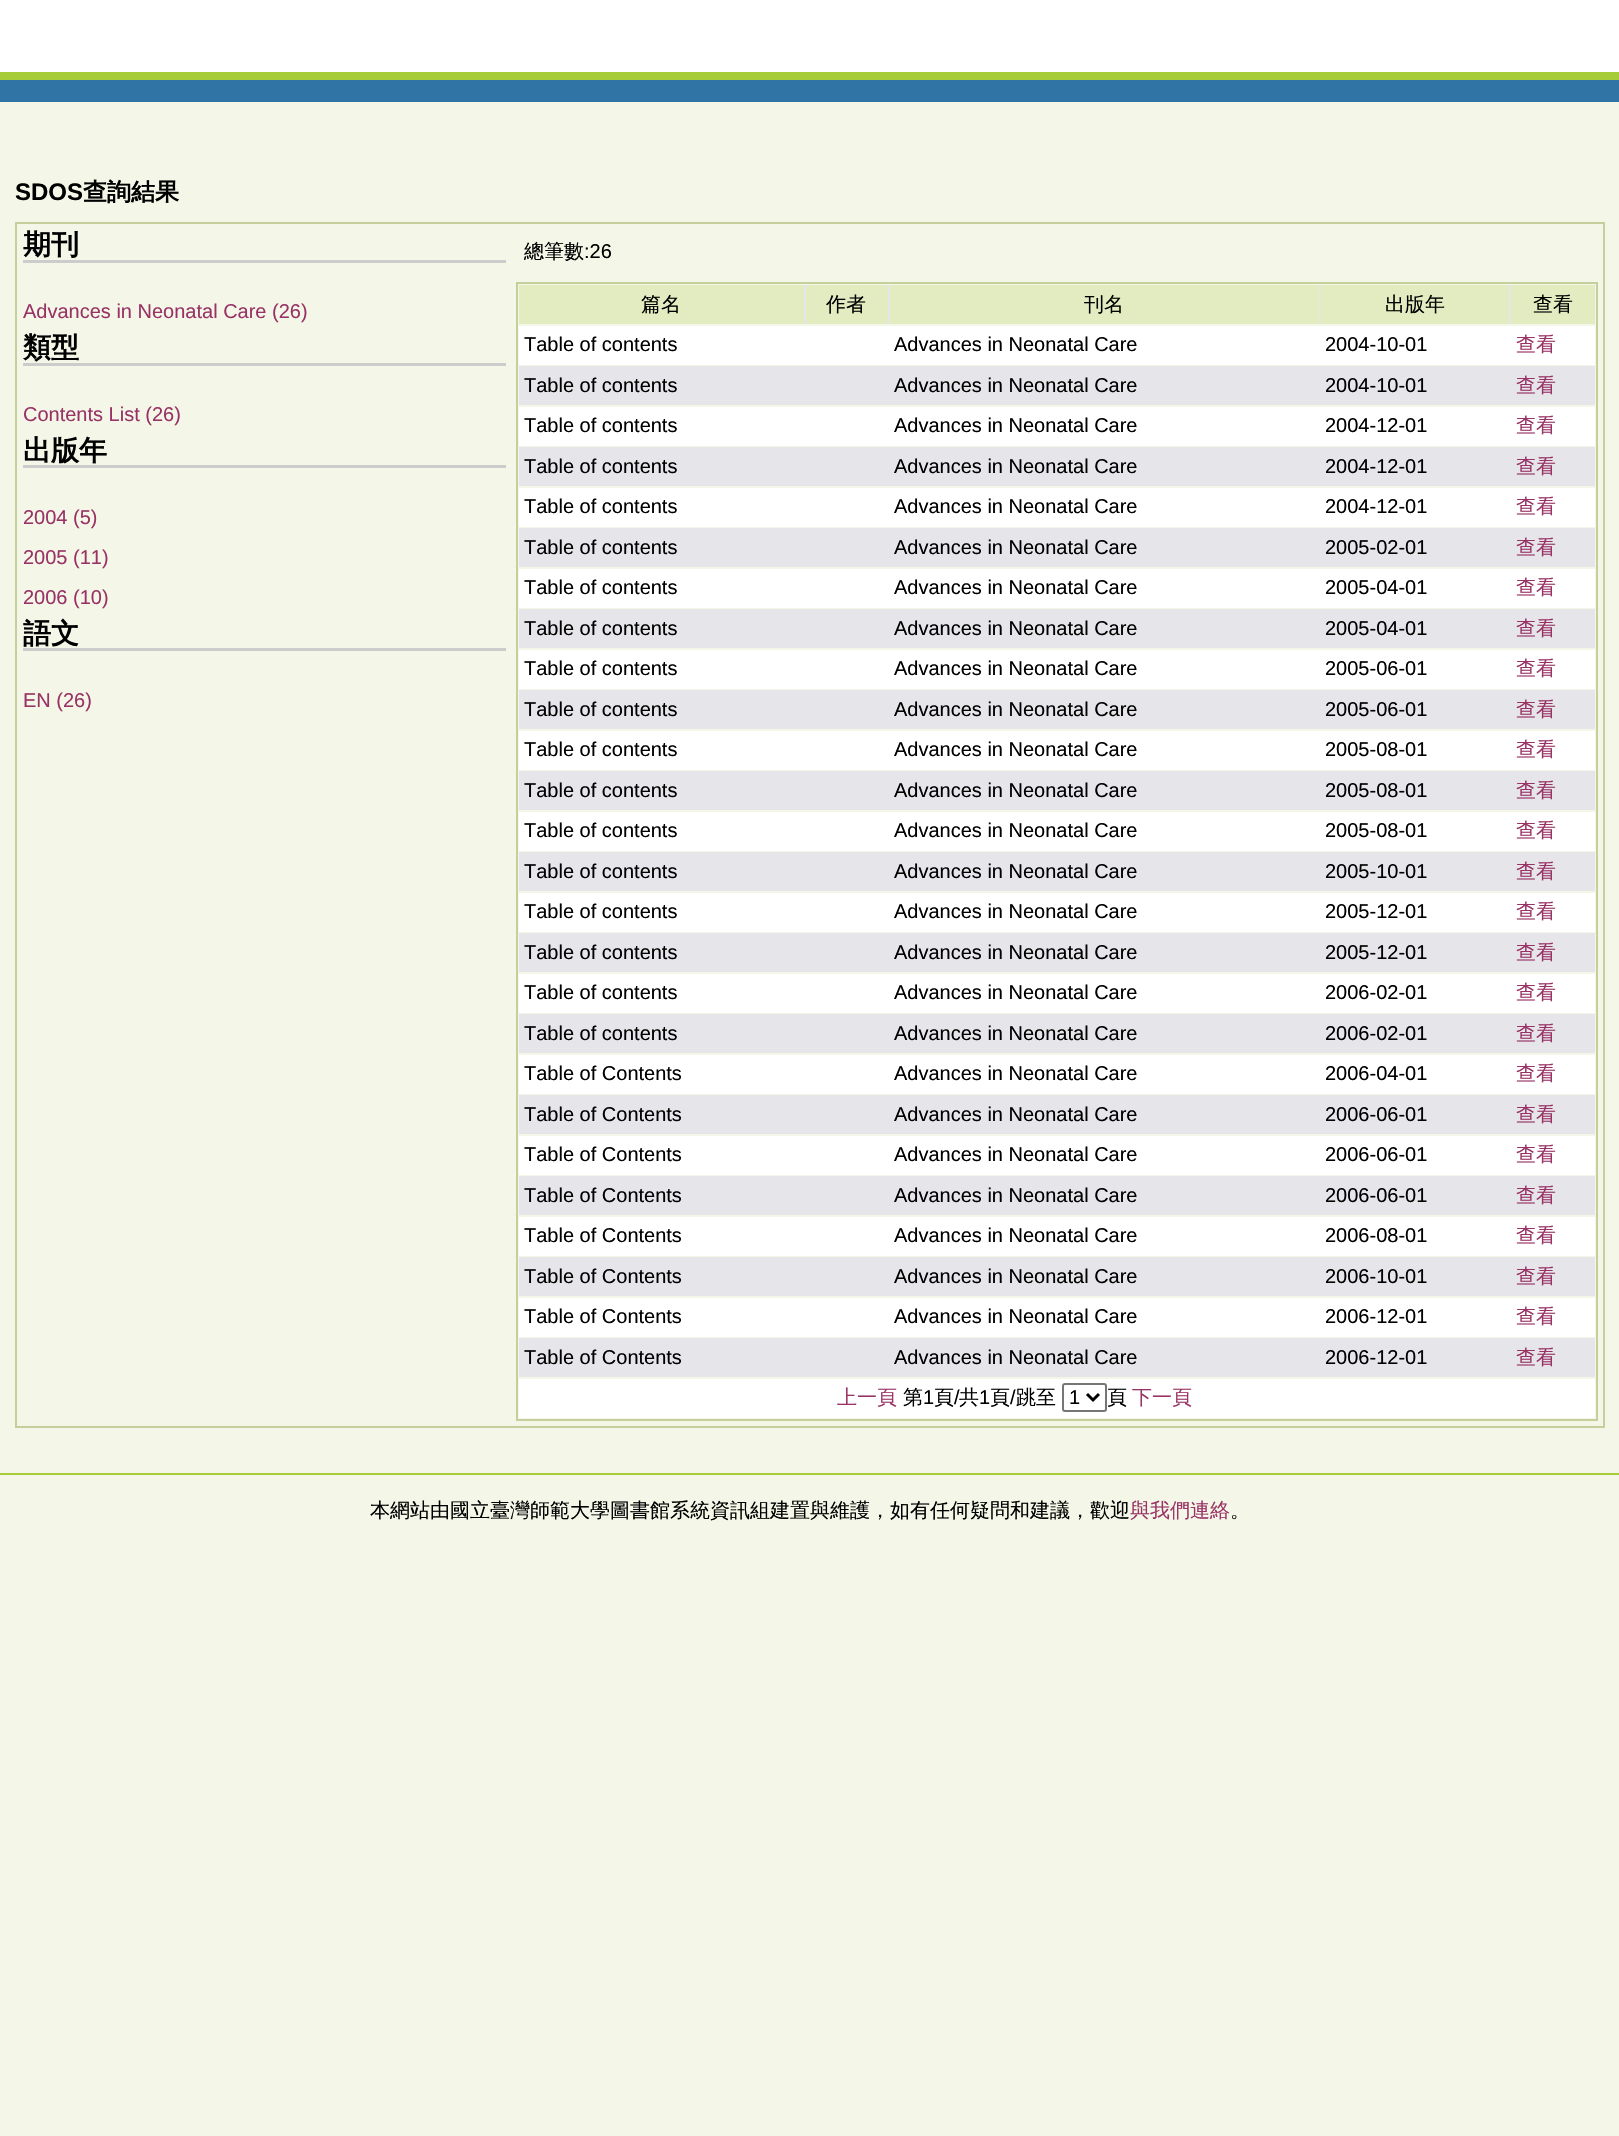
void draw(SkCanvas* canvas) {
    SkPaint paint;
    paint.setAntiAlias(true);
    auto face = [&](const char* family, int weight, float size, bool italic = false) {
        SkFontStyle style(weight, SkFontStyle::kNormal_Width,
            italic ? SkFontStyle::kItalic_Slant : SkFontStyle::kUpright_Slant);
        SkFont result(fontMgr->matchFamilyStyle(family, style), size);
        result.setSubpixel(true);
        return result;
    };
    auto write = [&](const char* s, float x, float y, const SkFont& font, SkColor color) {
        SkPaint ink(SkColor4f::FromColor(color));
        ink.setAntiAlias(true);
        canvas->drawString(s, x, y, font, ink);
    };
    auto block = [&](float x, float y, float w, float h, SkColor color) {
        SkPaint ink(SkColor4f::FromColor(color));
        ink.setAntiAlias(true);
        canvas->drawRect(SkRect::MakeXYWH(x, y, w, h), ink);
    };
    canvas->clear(SkColorSetRGB(244, 247, 231));
    block(0, 0, 1619, 72, SK_ColorWHITE);
    block(0, 72, 1619, 8, SkColorSetRGB(166, 205, 55));
    block(0, 80, 1619, 22, SkColorSetRGB(47, 116, 164));
    auto kFont1 = face("Liberation Sans", 700, 24);
    write("SDOS", 15, 200, kFont1, SK_ColorBLACK);
    auto kFont2 = face("WenQuanYi Zen Hei", 700, 24);
    write("查詢結果", 83, 200, kFont2, SK_ColorBLACK);
    paint.setStyle(SkPaint::kStroke_Style);
    paint.setStrokeWidth(2);
    paint.setColor(SkColorSetRGB(197, 207, 155));
    canvas->drawRect(SkRect::MakeXYWH(16, 223, 1588, 1204), paint);
    block(23, 260, 483, 3, SkColorSetRGB(204, 204, 204));
    auto kFont3 = face("WenQuanYi Zen Hei", 700, 28);
    write("期刊", 23, 254, kFont3, SK_ColorBLACK);
    auto kFont4 = face("Liberation Sans", 400, 20);
    write("Advances in Neonatal Care (26)", 23, 318, kFont4, SkColorSetRGB(153, 51, 102));
    block(23, 363, 483, 3, SkColorSetRGB(204, 204, 204));
    write("類型", 23, 357, kFont3, SK_ColorBLACK);
    write("Contents List (26)", 23, 421, kFont4, SkColorSetRGB(153, 51, 102));
    block(23, 465, 483, 3, SkColorSetRGB(204, 204, 204));
    write("出版年", 23, 460, kFont3, SK_ColorBLACK);
    write("2004 (5)", 23, 524, kFont4, SkColorSetRGB(153, 51, 102));
    write("2005 (11)", 23, 564, kFont4, SkColorSetRGB(153, 51, 102));
    write("2006 (10)", 23, 604, kFont4, SkColorSetRGB(153, 51, 102));
    block(23, 648, 483, 3, SkColorSetRGB(204, 204, 204));
    write("語文", 23, 643, kFont3, SK_ColorBLACK);
    write("EN (26)", 23, 707, kFont4, SkColorSetRGB(153, 51, 102));
    auto kFont5 = face("WenQuanYi Zen Hei", 500, 20);
    write("總筆數", 524, 258, kFont5, SK_ColorBLACK);
    write(":26", 584, 258, kFont4, SK_ColorBLACK);
    canvas->drawRect(SkRect::MakeXYWH(517, 283, 1080, 1137), paint);
    block(804, 285, 707, 39, SkColorSetRGB(230, 230, 234));
    block(519, 285, 285, 39, SkColorSetRGB(227, 236, 192));
    write("篇名", 641, 311, kFont5, SK_ColorBLACK);
    block(806, 285, 82, 39, SkColorSetRGB(227, 236, 192));
    write("作者", 826, 311, kFont5, SK_ColorBLACK);
    block(890, 285, 429, 39, SkColorSetRGB(227, 236, 192));
    write("刊名", 1084, 311, kFont5, SK_ColorBLACK);
    block(1320, 285, 189, 39, SkColorSetRGB(227, 236, 192));
    write("出版年", 1385, 311, kFont5, SK_ColorBLACK);
    block(1511, 285, 84, 39, SkColorSetRGB(227, 236, 192));
    write("查看", 1533, 311, kFont5, SK_ColorBLACK);
    block(519, 326, 1076, 39, SK_ColorWHITE);
    write("Table of contents", 524, 351, kFont4, SK_ColorBLACK);
    write("Advances in Neonatal Care", 894, 351, kFont4, SK_ColorBLACK);
    write("2004-10-01", 1325, 351, kFont4, SK_ColorBLACK);
    write("查看", 1516, 351, kFont5, SkColorSetRGB(153, 51, 102));
    block(519, 366, 1076, 39, SkColorSetRGB(230, 230, 234));
    write("Table of contents", 524, 392, kFont4, SK_ColorBLACK);
    write("Advances in Neonatal Care", 894, 392, kFont4, SK_ColorBLACK);
    write("2004-10-01", 1325, 392, kFont4, SK_ColorBLACK);
    write("查看", 1516, 392, kFont5, SkColorSetRGB(153, 51, 102));
    block(519, 407, 1076, 39, SK_ColorWHITE);
    write("Table of contents", 524, 432, kFont4, SK_ColorBLACK);
    write("Advances in Neonatal Care", 894, 432, kFont4, SK_ColorBLACK);
    write("2004-12-01", 1325, 432, kFont4, SK_ColorBLACK);
    write("查看", 1516, 432, kFont5, SkColorSetRGB(153, 51, 102));
    block(519, 447, 1076, 39, SkColorSetRGB(230, 230, 234));
    write("Table of contents", 524, 473, kFont4, SK_ColorBLACK);
    write("Advances in Neonatal Care", 894, 473, kFont4, SK_ColorBLACK);
    write("2004-12-01", 1325, 473, kFont4, SK_ColorBLACK);
    write("查看", 1516, 473, kFont5, SkColorSetRGB(153, 51, 102));
    block(519, 488, 1076, 39, SK_ColorWHITE);
    write("Table of contents", 524, 513, kFont4, SK_ColorBLACK);
    write("Advances in Neonatal Care", 894, 513, kFont4, SK_ColorBLACK);
    write("2004-12-01", 1325, 513, kFont4, SK_ColorBLACK);
    write("查看", 1516, 513, kFont5, SkColorSetRGB(153, 51, 102));
    block(519, 528, 1076, 39, SkColorSetRGB(230, 230, 234));
    write("Table of contents", 524, 554, kFont4, SK_ColorBLACK);
    write("Advances in Neonatal Care", 894, 554, kFont4, SK_ColorBLACK);
    write("2005-02-01", 1325, 554, kFont4, SK_ColorBLACK);
    write("查看", 1516, 554, kFont5, SkColorSetRGB(153, 51, 102));
    block(519, 569, 1076, 39, SK_ColorWHITE);
    write("Table of contents", 524, 594, kFont4, SK_ColorBLACK);
    write("Advances in Neonatal Care", 894, 594, kFont4, SK_ColorBLACK);
    write("2005-04-01", 1325, 594, kFont4, SK_ColorBLACK);
    write("查看", 1516, 594, kFont5, SkColorSetRGB(153, 51, 102));
    block(519, 609, 1076, 39, SkColorSetRGB(230, 230, 234));
    write("Table of contents", 524, 635, kFont4, SK_ColorBLACK);
    write("Advances in Neonatal Care", 894, 635, kFont4, SK_ColorBLACK);
    write("2005-04-01", 1325, 635, kFont4, SK_ColorBLACK);
    write("查看", 1516, 635, kFont5, SkColorSetRGB(153, 51, 102));
    block(519, 650, 1076, 39, SK_ColorWHITE);
    write("Table of contents", 524, 675, kFont4, SK_ColorBLACK);
    write("Advances in Neonatal Care", 894, 675, kFont4, SK_ColorBLACK);
    write("2005-06-01", 1325, 675, kFont4, SK_ColorBLACK);
    write("查看", 1516, 675, kFont5, SkColorSetRGB(153, 51, 102));
    block(519, 690, 1076, 39, SkColorSetRGB(230, 230, 234));
    write("Table of contents", 524, 716, kFont4, SK_ColorBLACK);
    write("Advances in Neonatal Care", 894, 716, kFont4, SK_ColorBLACK);
    write("2005-06-01", 1325, 716, kFont4, SK_ColorBLACK);
    write("查看", 1516, 716, kFont5, SkColorSetRGB(153, 51, 102));
    block(519, 731, 1076, 39, SK_ColorWHITE);
    write("Table of contents", 524, 756, kFont4, SK_ColorBLACK);
    write("Advances in Neonatal Care", 894, 756, kFont4, SK_ColorBLACK);
    write("2005-08-01", 1325, 756, kFont4, SK_ColorBLACK);
    write("查看", 1516, 756, kFont5, SkColorSetRGB(153, 51, 102));
    block(519, 771, 1076, 39, SkColorSetRGB(230, 230, 234));
    write("Table of contents", 524, 797, kFont4, SK_ColorBLACK);
    write("Advances in Neonatal Care", 894, 797, kFont4, SK_ColorBLACK);
    write("2005-08-01", 1325, 797, kFont4, SK_ColorBLACK);
    write("查看", 1516, 797, kFont5, SkColorSetRGB(153, 51, 102));
    block(519, 812, 1076, 39, SK_ColorWHITE);
    write("Table of contents", 524, 837, kFont4, SK_ColorBLACK);
    write("Advances in Neonatal Care", 894, 837, kFont4, SK_ColorBLACK);
    write("2005-08-01", 1325, 837, kFont4, SK_ColorBLACK);
    write("查看", 1516, 837, kFont5, SkColorSetRGB(153, 51, 102));
    block(519, 852, 1076, 39, SkColorSetRGB(230, 230, 234));
    write("Table of contents", 524, 878, kFont4, SK_ColorBLACK);
    write("Advances in Neonatal Care", 894, 878, kFont4, SK_ColorBLACK);
    write("2005-10-01", 1325, 878, kFont4, SK_ColorBLACK);
    write("查看", 1516, 878, kFont5, SkColorSetRGB(153, 51, 102));
    block(519, 893, 1076, 39, SK_ColorWHITE);
    write("Table of contents", 524, 918, kFont4, SK_ColorBLACK);
    write("Advances in Neonatal Care", 894, 918, kFont4, SK_ColorBLACK);
    write("2005-12-01", 1325, 918, kFont4, SK_ColorBLACK);
    write("查看", 1516, 918, kFont5, SkColorSetRGB(153, 51, 102));
    block(519, 933, 1076, 39, SkColorSetRGB(230, 230, 234));
    write("Table of contents", 524, 959, kFont4, SK_ColorBLACK);
    write("Advances in Neonatal Care", 894, 959, kFont4, SK_ColorBLACK);
    write("2005-12-01", 1325, 959, kFont4, SK_ColorBLACK);
    write("查看", 1516, 959, kFont5, SkColorSetRGB(153, 51, 102));
    block(519, 974, 1076, 39, SK_ColorWHITE);
    write("Table of contents", 524, 999, kFont4, SK_ColorBLACK);
    write("Advances in Neonatal Care", 894, 999, kFont4, SK_ColorBLACK);
    write("2006-02-01", 1325, 999, kFont4, SK_ColorBLACK);
    write("查看", 1516, 999, kFont5, SkColorSetRGB(153, 51, 102));
    block(519, 1014, 1076, 39, SkColorSetRGB(230, 230, 234));
    write("Table of contents", 524, 1040, kFont4, SK_ColorBLACK);
    write("Advances in Neonatal Care", 894, 1040, kFont4, SK_ColorBLACK);
    write("2006-02-01", 1325, 1040, kFont4, SK_ColorBLACK);
    write("查看", 1516, 1040, kFont5, SkColorSetRGB(153, 51, 102));
    block(519, 1055, 1076, 39, SK_ColorWHITE);
    write("Table of Contents", 524, 1080, kFont4, SK_ColorBLACK);
    write("Advances in Neonatal Care", 894, 1080, kFont4, SK_ColorBLACK);
    write("2006-04-01", 1325, 1080, kFont4, SK_ColorBLACK);
    write("查看", 1516, 1080, kFont5, SkColorSetRGB(153, 51, 102));
    block(519, 1095, 1076, 39, SkColorSetRGB(230, 230, 234));
    write("Table of Contents", 524, 1121, kFont4, SK_ColorBLACK);
    write("Advances in Neonatal Care", 894, 1121, kFont4, SK_ColorBLACK);
    write("2006-06-01", 1325, 1121, kFont4, SK_ColorBLACK);
    write("查看", 1516, 1121, kFont5, SkColorSetRGB(153, 51, 102));
    block(519, 1136, 1076, 39, SK_ColorWHITE);
    write("Table of Contents", 524, 1161, kFont4, SK_ColorBLACK);
    write("Advances in Neonatal Care", 894, 1161, kFont4, SK_ColorBLACK);
    write("2006-06-01", 1325, 1161, kFont4, SK_ColorBLACK);
    write("查看", 1516, 1161, kFont5, SkColorSetRGB(153, 51, 102));
    block(519, 1176, 1076, 39, SkColorSetRGB(230, 230, 234));
    write("Table of Contents", 524, 1202, kFont4, SK_ColorBLACK);
    write("Advances in Neonatal Care", 894, 1202, kFont4, SK_ColorBLACK);
    write("2006-06-01", 1325, 1202, kFont4, SK_ColorBLACK);
    write("查看", 1516, 1202, kFont5, SkColorSetRGB(153, 51, 102));
    block(519, 1217, 1076, 39, SK_ColorWHITE);
    write("Table of Contents", 524, 1242, kFont4, SK_ColorBLACK);
    write("Advances in Neonatal Care", 894, 1242, kFont4, SK_ColorBLACK);
    write("2006-08-01", 1325, 1242, kFont4, SK_ColorBLACK);
    write("查看", 1516, 1242, kFont5, SkColorSetRGB(153, 51, 102));
    block(519, 1257, 1076, 39, SkColorSetRGB(230, 230, 234));
    write("Table of Contents", 524, 1283, kFont4, SK_ColorBLACK);
    write("Advances in Neonatal Care", 894, 1283, kFont4, SK_ColorBLACK);
    write("2006-10-01", 1325, 1283, kFont4, SK_ColorBLACK);
    write("查看", 1516, 1283, kFont5, SkColorSetRGB(153, 51, 102));
    block(519, 1298, 1076, 39, SK_ColorWHITE);
    write("Table of Contents", 524, 1323, kFont4, SK_ColorBLACK);
    write("Advances in Neonatal Care", 894, 1323, kFont4, SK_ColorBLACK);
    write("2006-12-01", 1325, 1323, kFont4, SK_ColorBLACK);
    write("查看", 1516, 1323, kFont5, SkColorSetRGB(153, 51, 102));
    block(519, 1338, 1076, 39, SkColorSetRGB(230, 230, 234));
    write("Table of Contents", 524, 1364, kFont4, SK_ColorBLACK);
    write("Advances in Neonatal Care", 894, 1364, kFont4, SK_ColorBLACK);
    write("2006-12-01", 1325, 1364, kFont4, SK_ColorBLACK);
    write("查看", 1516, 1364, kFont5, SkColorSetRGB(153, 51, 102));
    block(519, 1379, 1076, 39, SK_ColorWHITE);
    write("上一頁", 837, 1404, kFont5, SkColorSetRGB(153, 51, 102));
    write("第", 903, 1404, kFont5, SK_ColorBLACK);
    write("1", 923, 1404, kFont4, SK_ColorBLACK);
    write("頁", 934, 1404, kFont5, SK_ColorBLACK);
    write("/", 954, 1404, kFont4, SK_ColorBLACK);
    write("共", 959, 1404, kFont5, SK_ColorBLACK);
    write("1", 979, 1404, kFont4, SK_ColorBLACK);
    write("頁", 990, 1404, kFont5, SK_ColorBLACK);
    write("/", 1010, 1404, kFont4, SK_ColorBLACK);
    write("跳至", 1016, 1404, kFont5, SK_ColorBLACK);
    paint.setColor(SkColorSetRGB(118, 118, 118));
    canvas->drawRoundRect(SkRect::MakeXYWH(1063, 1384, 43, 27), 2, 2, paint);
    paint.setStrokeWidth(3);
    paint.setColor(SK_ColorBLACK);
    canvas->drawPath(SkPathBuilder().moveTo(1087, 1394).lineTo(1093, 1400).lineTo(1099, 1394).detach(), paint);
    write("1", 1069, 1404, kFont4, SK_ColorBLACK);
    write("頁", 1107, 1404, kFont5, SK_ColorBLACK);
    write("下一頁", 1132, 1404, kFont5, SkColorSetRGB(153, 51, 102));
    block(0, 1473, 1619, 2, SkColorSetRGB(166, 205, 55));
    write("本網站由國立臺灣師範大學圖書館系統資訊組建置與維護，如有任何疑問和建議，歡迎", 370, 1517, kFont5, SK_ColorBLACK);
    write("與我們連絡", 1130, 1517, kFont5, SkColorSetRGB(153, 51, 102));
    write("。", 1230, 1517, kFont5, SK_ColorBLACK);
}
